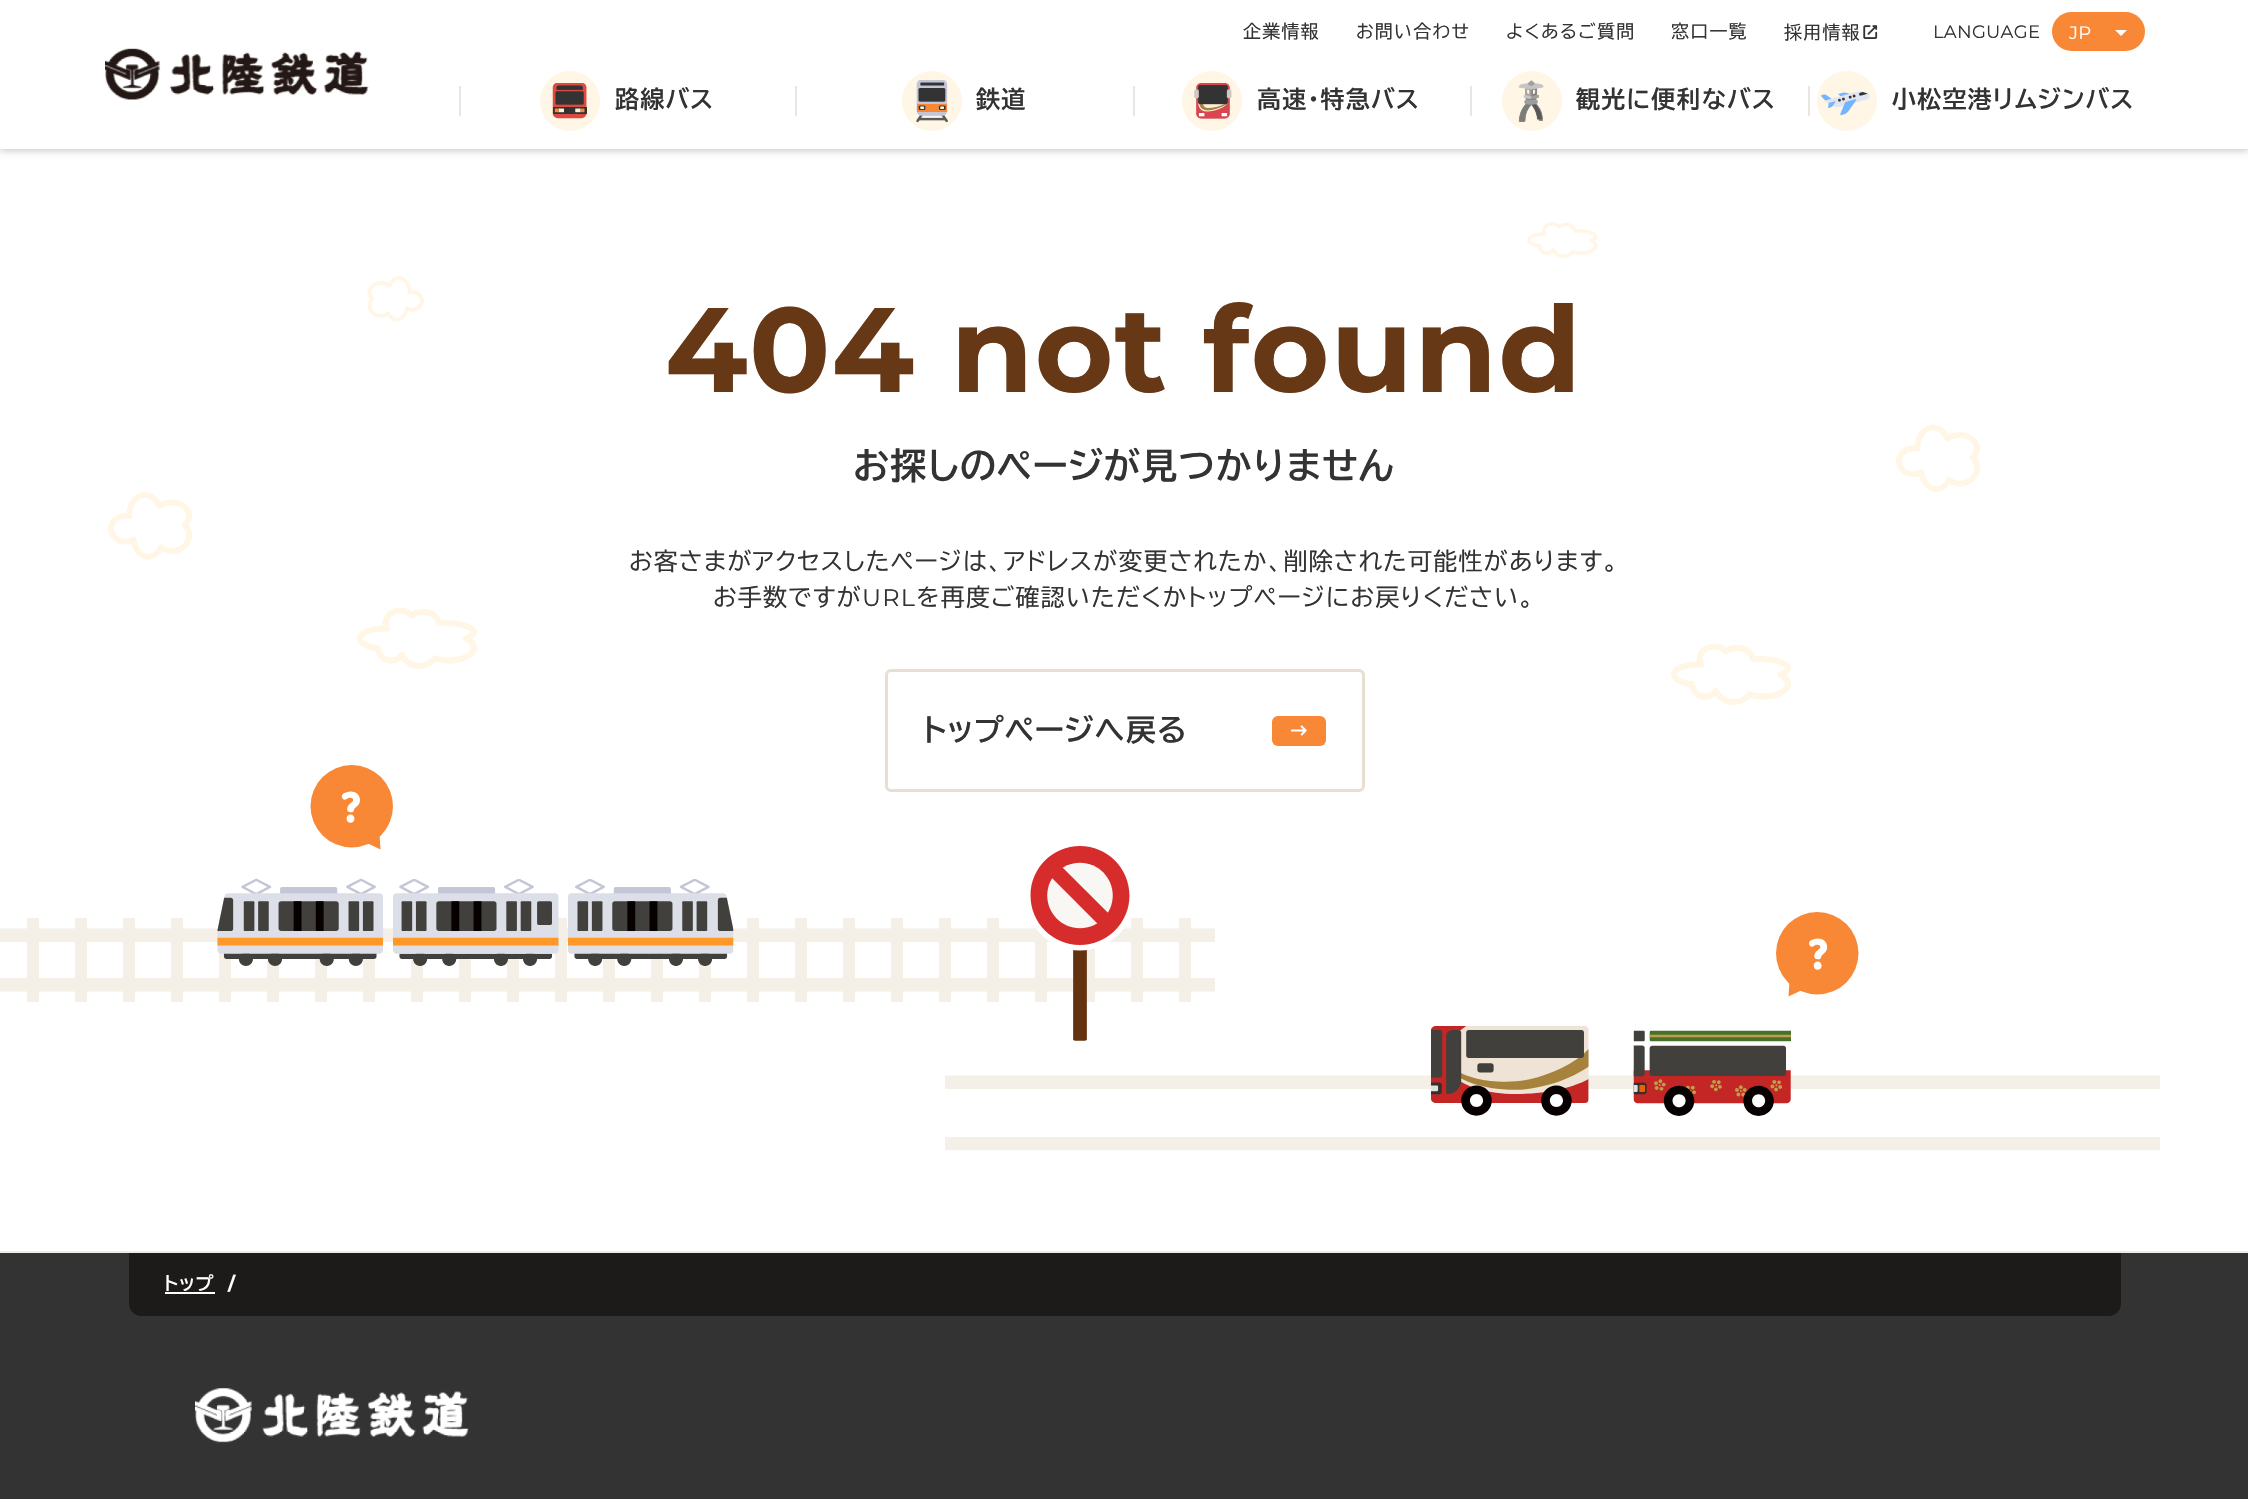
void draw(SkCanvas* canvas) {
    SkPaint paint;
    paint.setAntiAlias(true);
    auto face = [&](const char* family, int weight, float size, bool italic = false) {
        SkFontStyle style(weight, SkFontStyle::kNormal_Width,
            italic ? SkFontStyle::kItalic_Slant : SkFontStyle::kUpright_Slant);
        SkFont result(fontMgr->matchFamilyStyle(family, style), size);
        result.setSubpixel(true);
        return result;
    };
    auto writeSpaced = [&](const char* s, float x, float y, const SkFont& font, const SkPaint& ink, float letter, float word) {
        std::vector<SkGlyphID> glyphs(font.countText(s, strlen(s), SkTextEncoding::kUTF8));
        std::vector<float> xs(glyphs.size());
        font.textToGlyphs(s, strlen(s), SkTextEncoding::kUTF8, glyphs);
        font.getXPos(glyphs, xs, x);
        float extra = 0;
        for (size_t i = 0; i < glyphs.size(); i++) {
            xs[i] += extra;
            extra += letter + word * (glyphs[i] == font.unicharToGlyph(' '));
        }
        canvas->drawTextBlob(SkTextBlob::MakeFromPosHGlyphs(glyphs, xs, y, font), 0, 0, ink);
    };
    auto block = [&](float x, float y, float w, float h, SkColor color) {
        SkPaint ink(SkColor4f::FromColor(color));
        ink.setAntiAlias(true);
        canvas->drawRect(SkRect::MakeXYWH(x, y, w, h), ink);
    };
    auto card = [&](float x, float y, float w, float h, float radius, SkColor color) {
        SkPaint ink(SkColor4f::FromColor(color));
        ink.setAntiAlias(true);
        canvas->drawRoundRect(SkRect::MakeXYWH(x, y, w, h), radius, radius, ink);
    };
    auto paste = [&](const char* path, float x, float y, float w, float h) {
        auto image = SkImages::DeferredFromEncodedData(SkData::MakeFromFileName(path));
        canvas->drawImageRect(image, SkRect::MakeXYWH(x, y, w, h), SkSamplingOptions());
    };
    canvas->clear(SK_ColorWHITE);
    paint.setColor(SkColorSetARGB(64, 0, 0, 0));
    paint.setMaskFilter(SkMaskFilter::MakeBlur(kNormal_SkBlurStyle, 4));
    canvas->drawRect(SkRect::MakeXYWH(0, 2, 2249, 148), paint);
    paint.setMaskFilter(nullptr);
    block(0, 0, 2248, 149, SK_ColorWHITE);
    paste("pic1.png", 105, 48, 264, 52);
    auto kFont1 = face("BIZ UDPGothic", 400, 18);
    paint.setColor(SkColorSetRGB(51, 51, 51));
    writeSpaced("企業情報", 1243, 38, kFont1, paint, 1.2f, 0);
    writeSpaced("お問い合わせ", 1356, 38, kFont1, paint, 1.2f, 0);
    writeSpaced("よくあるご質問", 1506, 38, kFont1, paint, 1.2f, 0);
    writeSpaced("窓口一覧", 1671, 38, kFont1, paint, 1.2f, 0);
    writeSpaced("採用情報", 1784, 39, kFont1, paint, 1.2f, 0);
    paste("pic2.png", 1863, 25, 15, 14);
    auto kFont2 = face("Montserrat", 400, 18);
    writeSpaced("LANGUAGE", 1933, 38, kFont2, paint, 0.25f, 0);
    card(2052, 12, 93, 39, 19.5f, SkColorSetRGB(248, 136, 54));
    paint.setColor(SK_ColorWHITE);
    writeSpaced("JP", 2069, 39, kFont2, paint, 0.25f, 0);
    canvas->drawPath(SkPathBuilder().moveTo(2115, 30).lineTo(2127, 30).lineTo(2121, 36).close().detach(), paint);
    block(459, 86, 2, 30, SkColorSetRGB(233, 230, 225));
    paint.setColor(SkColorSetRGB(255, 246, 230));
    canvas->drawCircle(570, 101, 30, paint);
    paste("pic3.png", 552, 83, 35, 36);
    auto kFont3 = face("BIZ UDPGothic", 700, 24);
    paint.setColor(SkColorSetRGB(51, 51, 51));
    writeSpaced("路線バス", 615, 108, kFont3, paint, 1.2f, 0);
    block(795, 86, 2, 30, SkColorSetRGB(233, 230, 225));
    paint.setColor(SkColorSetRGB(255, 246, 230));
    canvas->drawCircle(932, 101, 30, paint);
    paste("pic4.png", 916, 80, 32, 43);
    paint.setColor(SkColorSetRGB(51, 51, 51));
    writeSpaced("鉄道", 976, 108, kFont3, paint, 1.2f, 0);
    block(1133, 86, 2, 30, SkColorSetRGB(233, 230, 225));
    paint.setColor(SkColorSetRGB(255, 246, 230));
    canvas->drawCircle(1212, 101, 30, paint);
    paste("pic5.png", 1194, 83, 38, 36);
    paint.setColor(SkColorSetRGB(51, 51, 51));
    writeSpaced("高速・特急バス", 1257, 108, kFont3, paint, 1.2f, 0);
    block(1470, 86, 2, 30, SkColorSetRGB(233, 230, 225));
    paint.setColor(SkColorSetRGB(255, 246, 230));
    canvas->drawCircle(1532, 101, 30, paint);
    paste("pic6.png", 1518, 80, 26, 42);
    paint.setColor(SkColorSetRGB(51, 51, 51));
    writeSpaced("観光に便利なバス", 1576, 108, kFont3, paint, 1.2f, 0);
    block(1808, 86, 2, 30, SkColorSetRGB(233, 230, 225));
    paint.setColor(SkColorSetRGB(255, 246, 230));
    canvas->drawCircle(1847, 101, 30, paint);
    paste("pic7.png", 1821, 91, 49, 25);
    paint.setColor(SkColorSetRGB(51, 51, 51));
    writeSpaced("小松空港リムジンバス", 1892, 108, kFont3, paint, 1.2f, 0);
    auto kFont4 = face("Montserrat", 700, 120);
    paint.setColor(SkColorSetRGB(103, 56, 22));
    writeSpaced("404 not found", 665, 392, kFont4, paint, 1.2f, 0);
    auto kFont5 = face("BIZ UDPGothic", 700, 36);
    paint.setColor(SkColorSetRGB(51, 51, 51));
    writeSpaced("お探しのページが見つかりません", 853, 479, kFont5, paint, 1.2f, 0);
    auto kFont6 = face("BIZ UDPGothic", 400, 24);
    writeSpaced("お客さまがアクセスしたページは、アドレスが変更されたか、削除された可能性があります。", 629, 570, kFont6, paint, 1.2f, 0);
    writeSpaced("お手数ですが", 713, 606, kFont6, paint, 1.2f, 0);
    auto kFont7 = face("Montserrat", 400, 24);
    writeSpaced("URL", 862, 606, kFont7, paint, 1.2f, 0);
    writeSpaced("を再度ご確認いただくかトップページにお戻りください。", 916, 606, kFont6, paint, 1.2f, 0);
    paint.setStyle(SkPaint::kStroke_Style);
    paint.setStrokeWidth(3);
    paint.setColor(SkColorSetRGB(232, 222, 210));
    canvas->drawRoundRect(SkRect::MakeXYWH(886.5f, 670.5f, 477, 120), 4.5f, 4.5f, paint);
    auto kFont8 = face("BIZ UDPGothic", 700, 30);
    paint.setStyle(SkPaint::kFill_Style);
    paint.setColor(SkColorSetRGB(51, 51, 51));
    writeSpaced("トップページへ戻る", 923, 741, kFont8, paint, 1.2f, 0);
    card(1272, 716, 54, 30, 6, SkColorSetRGB(248, 136, 54));
    paste("pic9.png", 1290, 725, 17, 11);
    paste("pic8.png", 0, 222, 2160, 929);
    block(0, 1251, 2248, 2, SkColorSetRGB(239, 234, 226));
    block(0, 1253, 2248, 246, SkColorSetRGB(51, 51, 51));
    paint.setColor(SkColorSetRGB(28, 27, 26));
    canvas->drawPath(SkPathBuilder().moveTo(129, 1253).lineTo(2121, 1253).lineTo(2121, 1304).cubicTo(2121, 1310.5f, 2115.5f, 1316, 2109, 1316).lineTo(141, 1316).cubicTo(134.5f, 1316, 129, 1310.5f, 129, 1304).close().detach(), paint);
    auto kFont9 = face("BIZ UDPGothic", 700, 18);
    paint.setColor(SK_ColorWHITE);
    writeSpaced("トップ", 164, 1290, kFont9, paint, 1.2f, 0);
    block(165, 1292, 50, 2, SK_ColorWHITE);
    auto kFont10 = face("Montserrat", 700, 18);
    writeSpaced("/", 228, 1290, kFont10, paint, 1.2f, 0);
    paste("pic10.png", 195, 1388, 274, 55);
}
